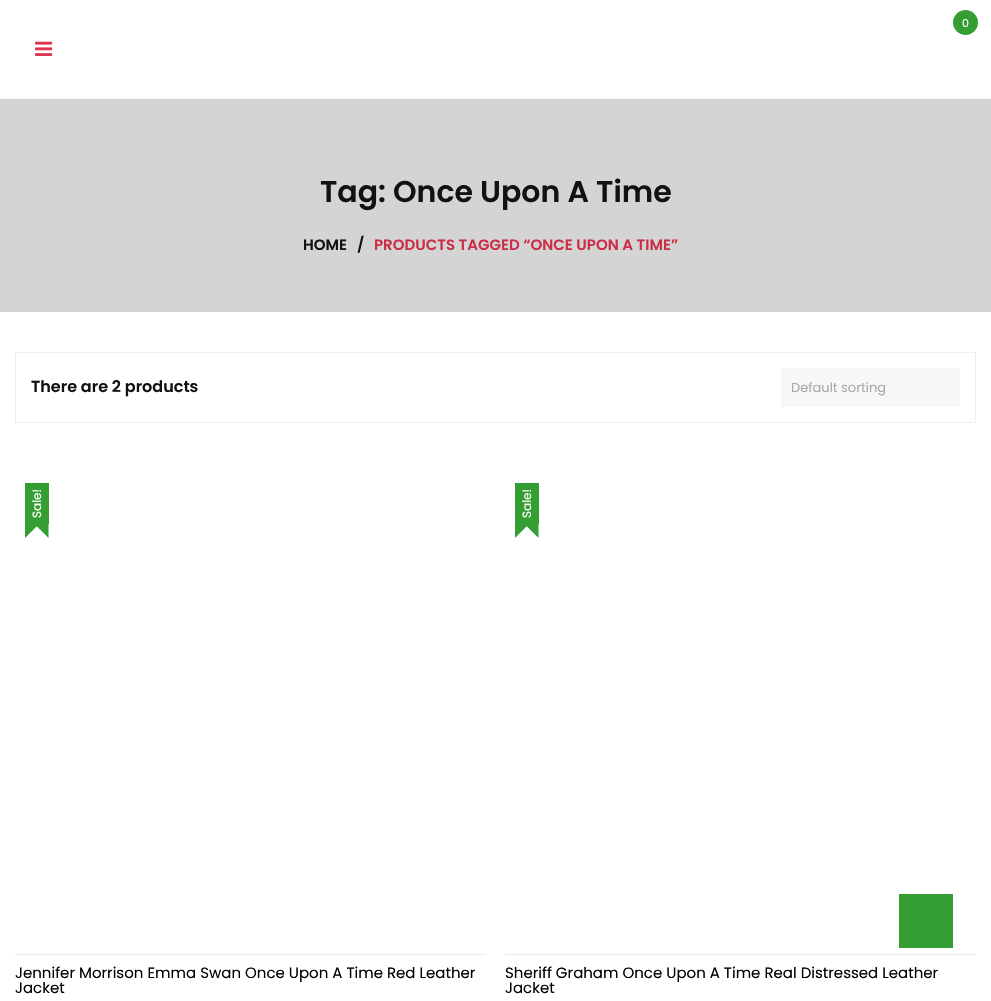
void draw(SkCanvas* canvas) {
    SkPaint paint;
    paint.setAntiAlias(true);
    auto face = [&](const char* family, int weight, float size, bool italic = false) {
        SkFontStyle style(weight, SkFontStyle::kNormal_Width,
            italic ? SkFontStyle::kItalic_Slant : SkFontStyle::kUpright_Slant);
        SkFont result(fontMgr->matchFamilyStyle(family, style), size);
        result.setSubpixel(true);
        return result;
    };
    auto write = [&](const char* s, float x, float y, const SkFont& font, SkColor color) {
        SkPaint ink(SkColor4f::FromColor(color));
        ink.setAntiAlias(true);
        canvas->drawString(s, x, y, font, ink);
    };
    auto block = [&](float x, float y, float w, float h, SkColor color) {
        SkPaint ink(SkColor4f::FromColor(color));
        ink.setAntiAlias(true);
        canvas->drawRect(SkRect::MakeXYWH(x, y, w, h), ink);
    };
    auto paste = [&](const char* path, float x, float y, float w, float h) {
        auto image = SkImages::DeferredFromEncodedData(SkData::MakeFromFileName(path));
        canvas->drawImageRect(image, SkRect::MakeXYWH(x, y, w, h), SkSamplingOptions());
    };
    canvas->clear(SK_ColorWHITE);
    paint.setColor(SkColorSetRGB(53, 158, 51));
    canvas->drawCircle(965.5f, 22.5f, 12.5f, paint);
    auto kFont1 = face("Poppins", 400, 11);
    write("0", 962, 27, kFont1, SK_ColorWHITE);
    paste("pic1.png", 35, 41, 18, 15);
    block(0, 99, 991, 213, SkColorSetRGB(212, 212, 212));
    auto kFont2 = face("Poppins", 600, 30);
    write("Tag: Once Upon A Time", 320, 202, kFont2, SkColorSetRGB(18, 18, 18));
    auto kFont3 = face("Poppins", 600, 15);
    write("HOME", 303, 250, kFont3, SkColorSetRGB(18, 18, 18));
    write("/", 357, 250, kFont3, SkColorSetRGB(18, 18, 18));
    write("PRODUCTS TAGGED “ONCE UPON A TIME”", 374, 250, kFont3, SkColorSetRGB(201, 48, 72));
    paint.setStyle(SkPaint::kStroke_Style);
    paint.setStrokeWidth(1);
    paint.setColor(SkColorSetRGB(238, 238, 238));
    canvas->drawRect(SkRect::MakeXYWH(15.5f, 352.5f, 960, 70), paint);
    auto kFont4 = face("Poppins", 600, 16);
    write("There are 2 products", 31, 392, kFont4, SkColorSetRGB(18, 18, 18));
    block(781, 368, 179, 39, SkColorSetRGB(247, 247, 247));
    auto kFont5 = face("Poppins", 400, 13);
    write("Default sorting", 791, 392, kFont5, SkColorSetRGB(169, 169, 169));
    block(25, 483, 24, 41, SkColorSetRGB(53, 158, 51));
    auto kFont6 = face("Poppins", 400, 12);
    canvas->save();
    canvas->rotate(-90, 41, 518);
    write("Sale!", 41, 518, kFont6, SK_ColorWHITE);
    canvas->restore();
    paint.setStyle(SkPaint::kFill_Style);
    paint.setColor(SkColorSetRGB(53, 158, 51));
    canvas->drawPath(SkPathBuilder().moveTo(25, 538).lineTo(25, 512).lineTo(38, 525).close().detach(), paint);
    canvas->drawPath(SkPathBuilder().moveTo(48.5f, 512).lineTo(48.5f, 538).lineTo(35.5f, 525).close().detach(), paint);
    block(15, 954, 471, 1, SkColorSetRGB(235, 233, 235));
    auto kFont7 = face("Poppins", 400, 15);
    write("Jennifer Morrison Emma Swan Once Upon A Time Red Leather", 15, 978, kFont7, SkColorSetRGB(1, 1, 1));
    write("Jacket", 15, 993, kFont7, SkColorSetRGB(1, 1, 1));
    block(515, 483, 24, 41, SkColorSetRGB(53, 158, 51));
    canvas->save();
    canvas->rotate(-90, 531, 518);
    write("Sale!", 531, 518, kFont6, SK_ColorWHITE);
    canvas->restore();
    canvas->drawPath(SkPathBuilder().moveTo(515, 538).lineTo(515, 512).lineTo(528, 525).close().detach(), paint);
    canvas->drawPath(SkPathBuilder().moveTo(538.5f, 512).lineTo(538.5f, 538).lineTo(525.5f, 525).close().detach(), paint);
    block(505, 954, 471, 1, SkColorSetRGB(235, 233, 235));
    write("Sheriff Graham Once Upon A Time Real Distressed Leather", 505, 978, kFont7, SkColorSetRGB(1, 1, 1));
    write("Jacket", 505, 993, kFont7, SkColorSetRGB(1, 1, 1));
    block(899, 894, 54, 54, SkColorSetRGB(53, 158, 51));
}
